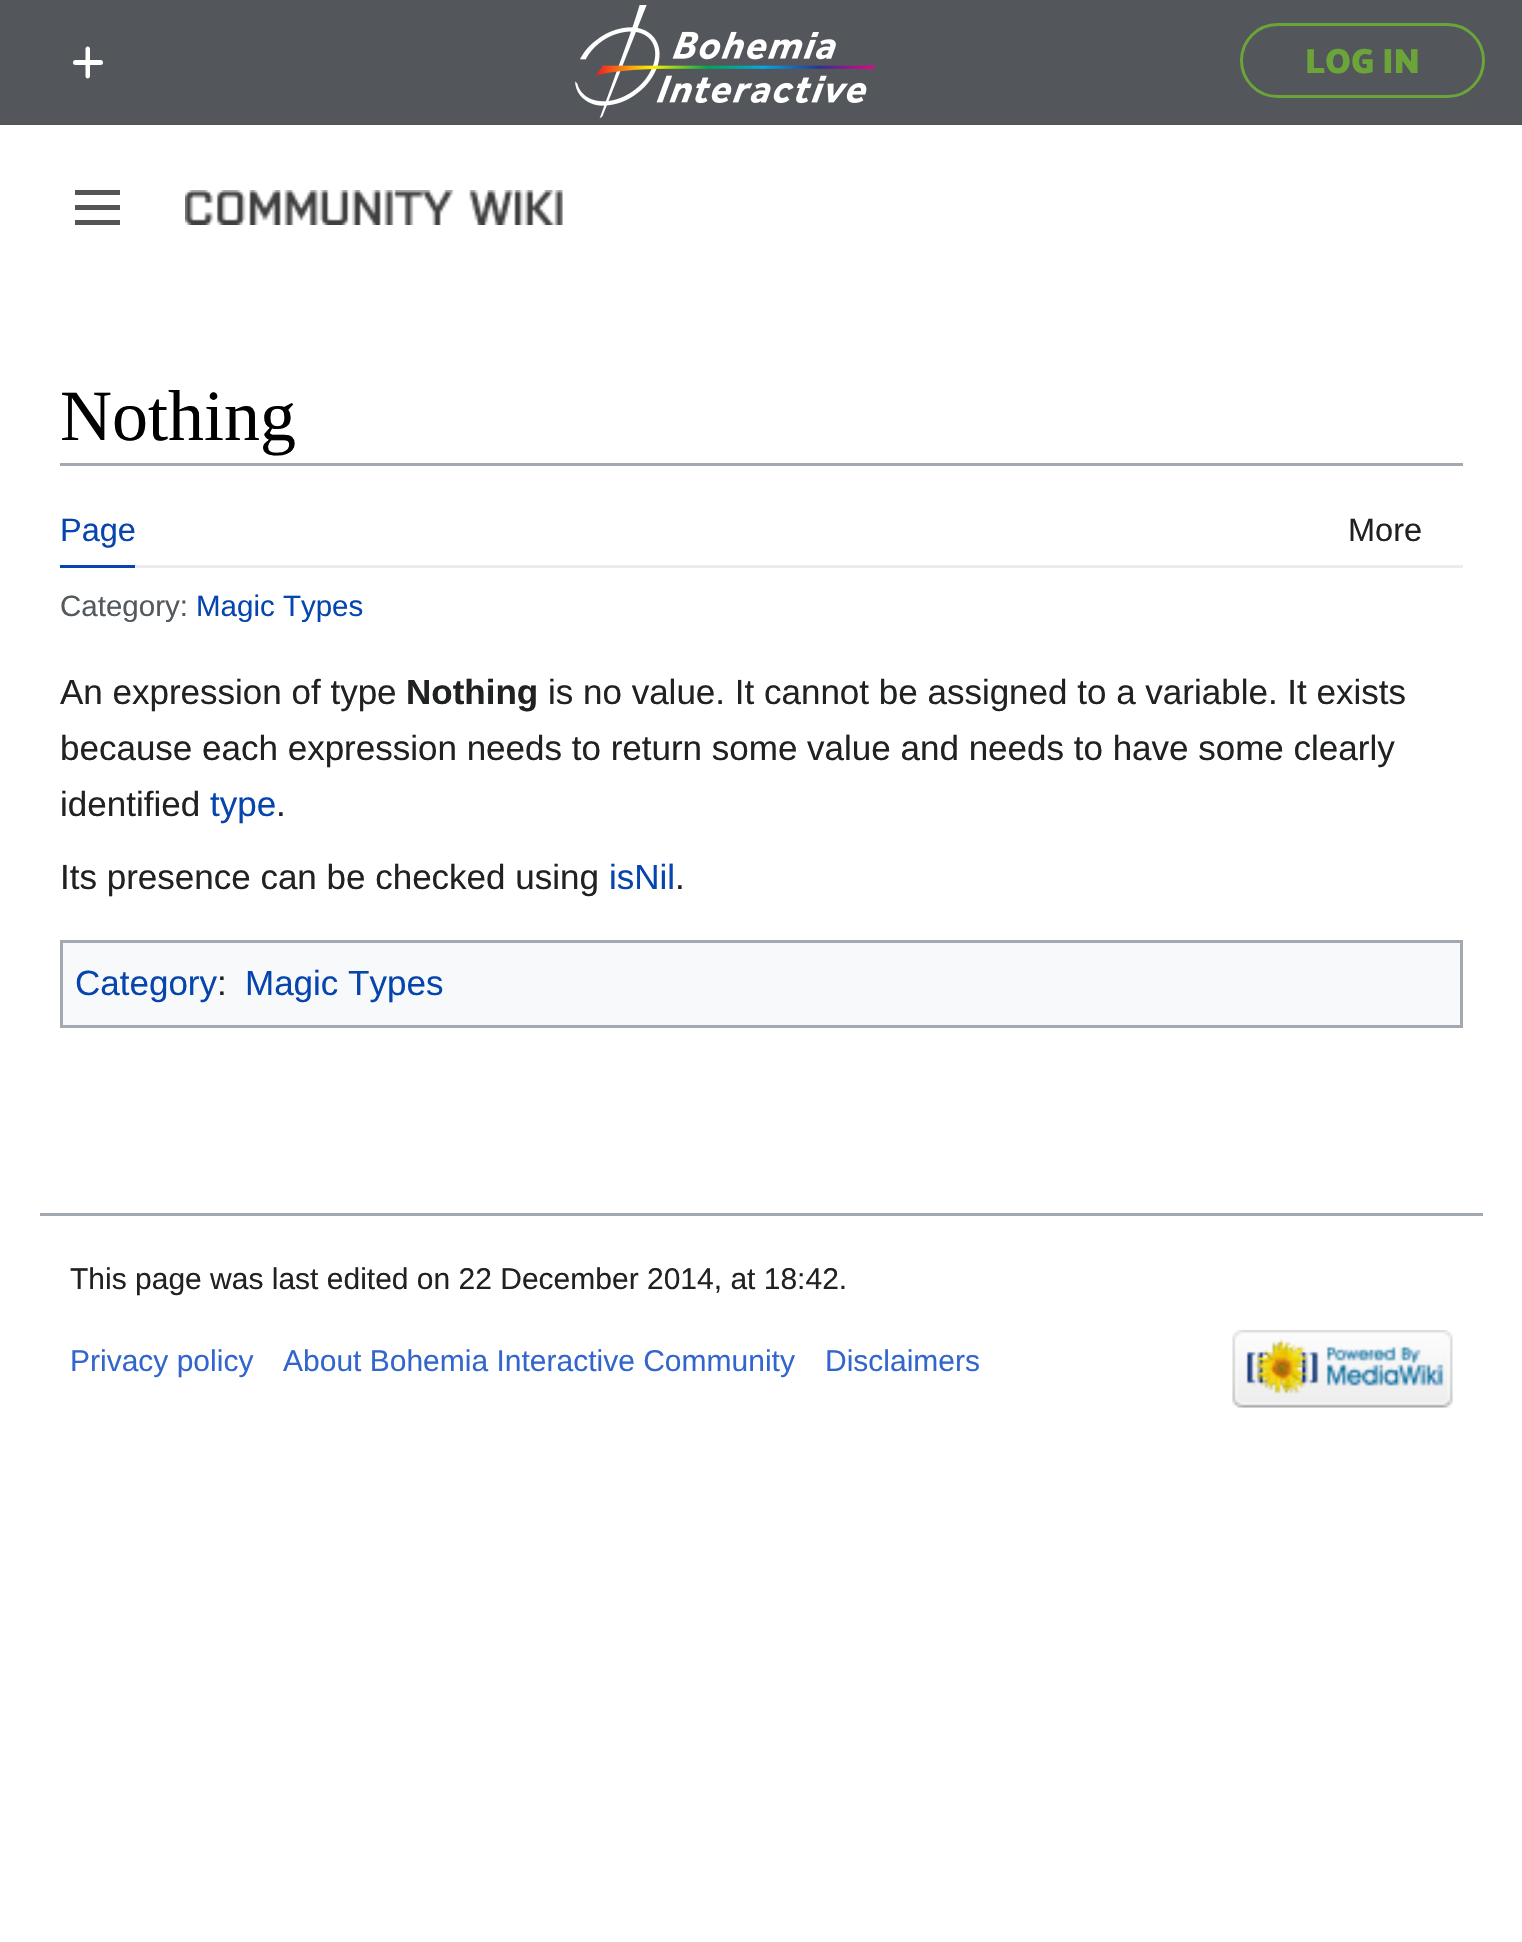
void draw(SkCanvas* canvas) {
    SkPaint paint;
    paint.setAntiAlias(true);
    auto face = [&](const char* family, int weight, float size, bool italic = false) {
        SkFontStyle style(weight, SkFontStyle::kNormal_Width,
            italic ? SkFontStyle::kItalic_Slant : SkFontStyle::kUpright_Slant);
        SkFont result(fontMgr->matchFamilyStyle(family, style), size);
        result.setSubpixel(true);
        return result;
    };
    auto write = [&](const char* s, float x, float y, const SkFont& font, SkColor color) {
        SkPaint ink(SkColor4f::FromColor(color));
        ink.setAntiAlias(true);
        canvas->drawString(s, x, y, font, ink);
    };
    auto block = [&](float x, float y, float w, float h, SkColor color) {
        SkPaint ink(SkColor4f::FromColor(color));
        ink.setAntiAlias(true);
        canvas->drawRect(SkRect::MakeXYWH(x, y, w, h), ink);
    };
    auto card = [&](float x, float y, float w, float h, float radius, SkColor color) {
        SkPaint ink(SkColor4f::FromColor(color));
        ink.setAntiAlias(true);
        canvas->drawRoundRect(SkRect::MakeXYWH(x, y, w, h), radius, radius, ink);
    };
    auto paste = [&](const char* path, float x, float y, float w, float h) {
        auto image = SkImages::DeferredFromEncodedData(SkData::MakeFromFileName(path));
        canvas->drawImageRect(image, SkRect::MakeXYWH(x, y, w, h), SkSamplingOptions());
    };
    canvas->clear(SK_ColorWHITE);
    block(0, 0, 1522, 125, SkColorSetRGB(83, 86, 90));
    card(73, 60, 30, 5, 2.5f, SK_ColorWHITE);
    paint.setColor(SK_ColorWHITE);
    canvas->drawPath(SkPathBuilder().moveTo(90, 49).lineTo(90, 76).cubicTo(90, 77.5f, 89, 78.5f, 87.5f, 78.5f).cubicTo(86.5f, 78.5f, 85.5f, 77.5f, 85.5f, 76).lineTo(85.5f, 49).cubicTo(85.5f, 47.5f, 86.5f, 46.5f, 87.5f, 46.5f).cubicTo(89, 46.5f, 90, 47.5f, 90, 49).close().detach(), paint);
    paste("pic1.png", 575, 5, 300, 114);
    paint.setStyle(SkPaint::kStroke_Style);
    paint.setStrokeWidth(3);
    paint.setColor(SkColorSetRGB(107, 165, 57));
    canvas->drawRoundRect(SkRect::MakeXYWH(1241.5f, 24.5f, 242, 72), 36, 36, paint);
    auto kFont1 = face("Palanquin Dark", 700, 35);
    write("LOG IN", 1305, 73, kFont1, SkColorSetRGB(107, 165, 57));
    paint.setStyle(SkPaint::kFill_Style);
    paint.setColor(SkColorSetRGB(84, 84, 84));
    canvas->drawPath(SkPathBuilder().moveTo(75, 190).lineTo(75, 195).lineTo(120, 195).lineTo(120, 190).close().moveTo(75, 210).lineTo(120, 210).lineTo(120, 205).lineTo(75, 205).close().moveTo(75, 225).lineTo(120, 225).lineTo(120, 220).lineTo(75, 220).close().detach(), paint);
    paste("pic2.png", 185, 190, 378, 35);
    block(60, 463, 1403, 3, SkColorSetRGB(162, 169, 177));
    auto kFont2 = face("Liberation Serif", 400, 72);
    write("Nothing", 60, 440, kFont2, SK_ColorBLACK);
    block(135, 565, 1328, 3, SkColorSetRGB(234, 236, 240));
    block(60, 565, 75, 3, SkColorSetRGB(6, 69, 173));
    auto kFont3 = face("Liberation Sans", 400, 32.5f);
    write("Page", 60, 541, kFont3, SkColorSetRGB(6, 69, 173));
    write("More", 1348, 541, kFont3, SkColorSetRGB(32, 33, 34));
    auto kFont4 = face("Liberation Sans", 400, 29.5f);
    write("Category:", 60, 616, kFont4, SkColorSetRGB(84, 89, 93));
    write("Magic Types", 196, 616, kFont4, SkColorSetRGB(6, 69, 173));
    auto kFont5 = face("Liberation Sans", 400, 35);
    write("An expression of type", 60, 704, kFont5, SkColorSetRGB(32, 33, 34));
    auto kFont6 = face("Liberation Sans", 700, 35);
    write("Nothing", 406, 704, kFont6, SkColorSetRGB(32, 33, 34));
    write("is no value. It cannot be assigned to a variable. It exists", 548, 704, kFont5, SkColorSetRGB(32, 33, 34));
    write("because each expression needs to return some value and needs to have some clearly", 60, 760, kFont5, SkColorSetRGB(32, 33, 34));
    write("identified", 60, 816, kFont5, SkColorSetRGB(32, 33, 34));
    write("type", 210, 816, kFont5, SkColorSetRGB(6, 69, 173));
    write(".", 276, 816, kFont5, SkColorSetRGB(32, 33, 34));
    write("Its presence can be checked using", 60, 889, kFont5, SkColorSetRGB(32, 33, 34));
    write("isNil", 609, 889, kFont5, SkColorSetRGB(6, 69, 173));
    write(".", 675, 889, kFont5, SkColorSetRGB(32, 33, 34));
    paint.setColor(SkColorSetRGB(248, 249, 250));
    canvas->drawRect(SkRect::MakeXYWH(61.5f, 941.5f, 1400, 85), paint);
    paint.setStyle(SkPaint::kStroke_Style);
    paint.setColor(SkColorSetRGB(162, 169, 177));
    canvas->drawRect(SkRect::MakeXYWH(61.5f, 941.5f, 1400, 85), paint);
    write("Category", 75, 995, kFont5, SkColorSetRGB(6, 69, 173));
    write(":", 217, 995, kFont5, SkColorSetRGB(32, 33, 34));
    write("Magic Types", 245, 995, kFont5, SkColorSetRGB(6, 69, 173));
    block(40, 1213, 1443, 3, SkColorSetRGB(162, 169, 177));
    auto kFont7 = face("Liberation Sans", 400, 30);
    write("This page was last edited on 22 December 2014, at 18:42.", 70, 1289, kFont7, SkColorSetRGB(32, 33, 34));
    write("Privacy policy", 70, 1371, kFont7, SkColorSetRGB(51, 102, 204));
    write("About Bohemia Interactive Community", 283, 1371, kFont7, SkColorSetRGB(51, 102, 204));
    write("Disclaimers", 825, 1371, kFont7, SkColorSetRGB(51, 102, 204));
    paste("pic3.png", 1232, 1330, 221, 78);
}
